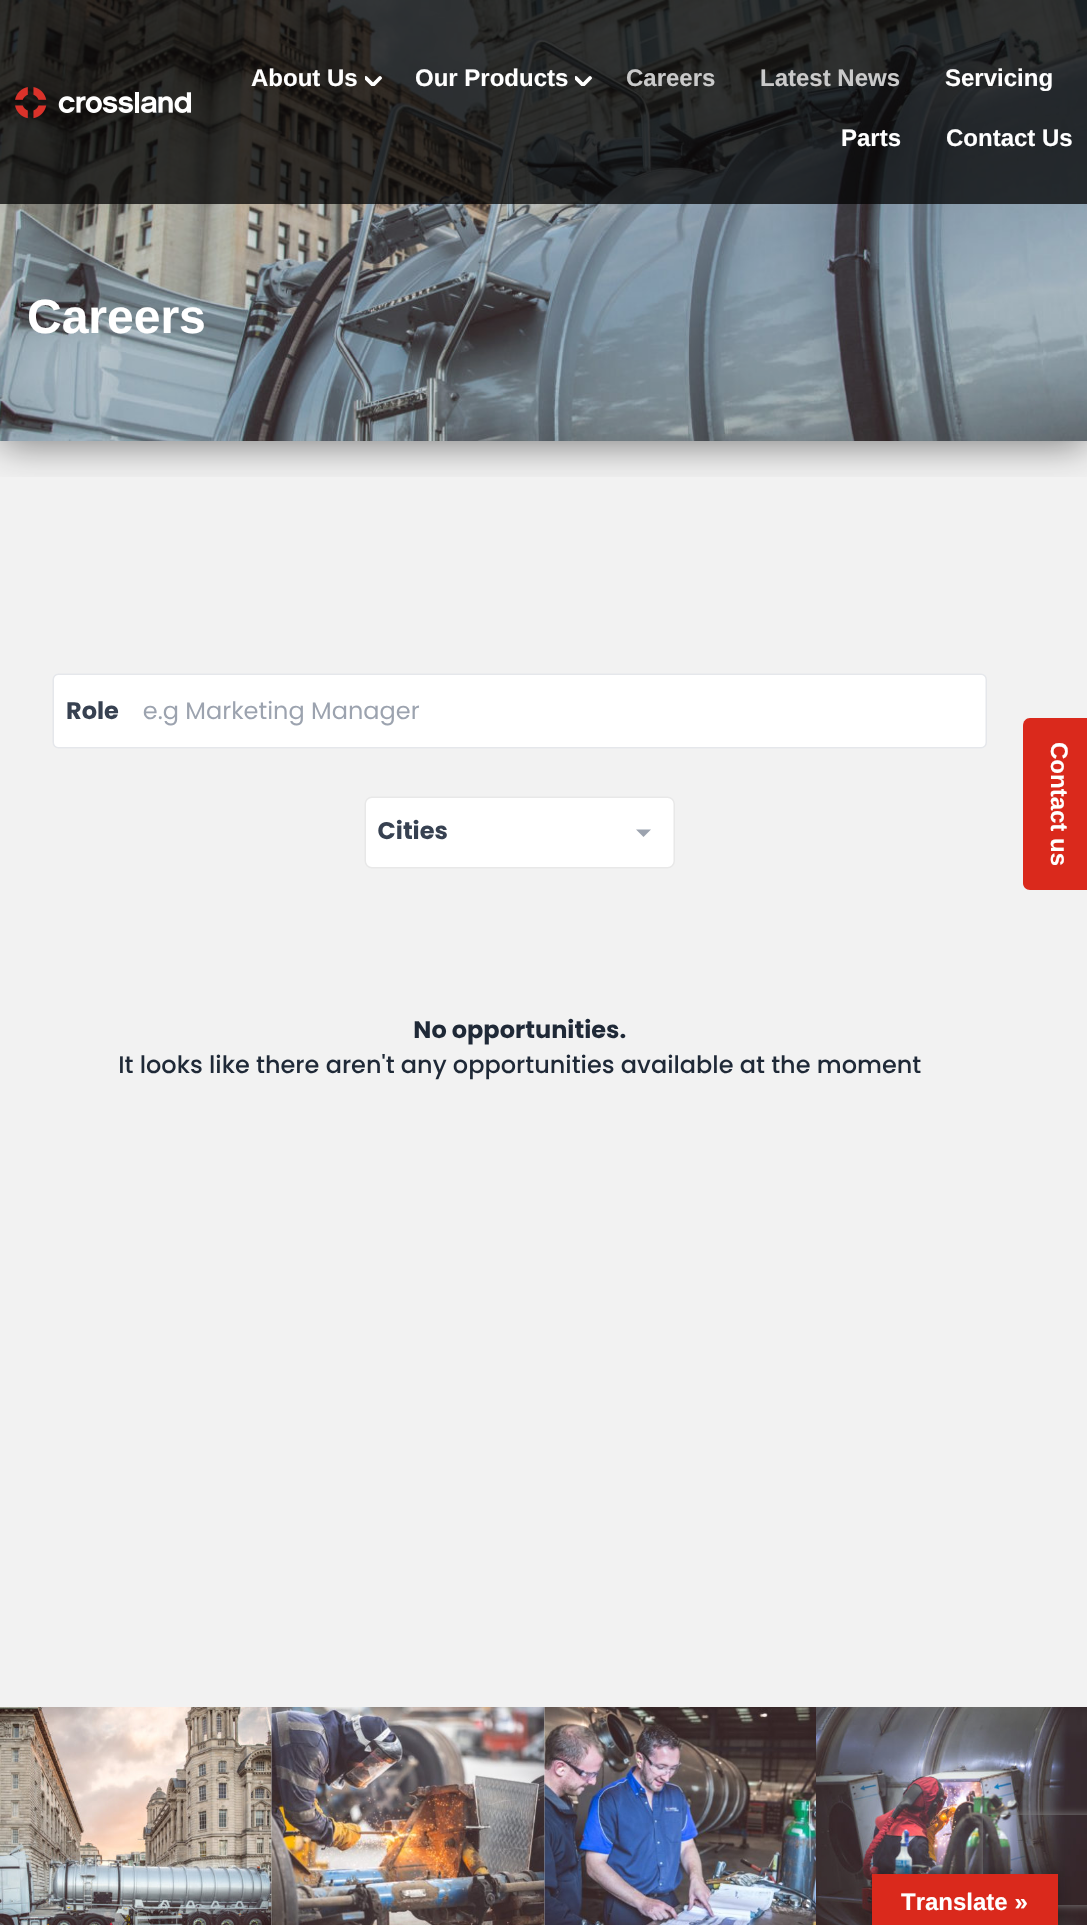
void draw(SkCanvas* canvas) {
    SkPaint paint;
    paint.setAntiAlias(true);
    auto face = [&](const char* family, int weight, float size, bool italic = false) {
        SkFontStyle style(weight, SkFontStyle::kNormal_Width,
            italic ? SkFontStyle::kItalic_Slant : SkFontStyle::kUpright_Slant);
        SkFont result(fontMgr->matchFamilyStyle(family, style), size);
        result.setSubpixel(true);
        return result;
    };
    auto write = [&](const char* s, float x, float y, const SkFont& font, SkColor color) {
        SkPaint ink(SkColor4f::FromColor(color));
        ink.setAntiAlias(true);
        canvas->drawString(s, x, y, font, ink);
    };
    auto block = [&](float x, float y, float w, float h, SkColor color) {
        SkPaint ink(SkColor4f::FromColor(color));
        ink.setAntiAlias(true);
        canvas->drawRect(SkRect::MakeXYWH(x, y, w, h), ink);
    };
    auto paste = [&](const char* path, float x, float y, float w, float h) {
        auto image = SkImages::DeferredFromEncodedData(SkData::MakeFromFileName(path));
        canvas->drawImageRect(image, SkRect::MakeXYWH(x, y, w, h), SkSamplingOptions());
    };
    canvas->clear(SkColorSetRGB(242, 242, 242));
    paste("pic1.png", 0, 0, 1087, 441);
    block(0, 0, 1087, 204, SkColorSetARGB(191, 0, 0, 0));
    paste("pic2.png", 15, 87, 176, 32);
    canvas->save();
    canvas->clipRect(SkRect::MakeXYWH(365, 75, 18, 11));
    paint.setStyle(SkPaint::kStroke_Style);
    paint.setStrokeWidth(3.8f);
    paint.setStrokeCap(SkPaint::kRound_Cap);
    paint.setStrokeJoin(SkPaint::kRound_Join);
    paint.setColor(SK_ColorWHITE);
    canvas->drawPath(SkPathBuilder().moveTo(366, 78).lineTo(373, 85).lineTo(380, 78).detach(), paint);
    canvas->restore();
    canvas->save();
    canvas->clipRect(SkRect::MakeXYWH(575, 75, 18, 11));
    canvas->drawPath(SkPathBuilder().moveTo(576, 78).lineTo(583, 85).lineTo(590, 78).detach(), paint);
    canvas->restore();
    canvas->save();
    canvas->clipRect(SkRect::MakeXYWH(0, 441, 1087, 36));
    paint.setStyle(SkPaint::kFill_Style);
    paint.setColor(SkColorSetARGB(128, 0, 0, 0));
    paint.setMaskFilter(SkMaskFilter::MakeBlur(kNormal_SkBlurStyle, 19));
    canvas->drawRect(SkRect::MakeXYWH(0, 3, 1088, 441), paint);
    paint.setMaskFilter(nullptr);
    canvas->restore();
    auto kFont1 = face("Liberation Sans", 700, 24);
    write("About Us", 251, 86, kFont1, SK_ColorWHITE);
    write("Our Products", 415, 86, kFont1, SK_ColorWHITE);
    write("Careers", 626, 86, kFont1, SkColorSetRGB(202, 202, 202));
    write("Latest News", 760, 86, kFont1, SkColorSetRGB(202, 202, 202));
    write("Servicing", 945, 86, kFont1, SK_ColorWHITE);
    write("Parts", 841, 146, kFont1, SK_ColorWHITE);
    write("Contact Us", 946, 146, kFont1, SK_ColorWHITE);
    auto kFont2 = face("Liberation Sans", 700, 48);
    write("Careers", 27, 333, kFont2, SK_ColorWHITE);
    paste("pic3.png", 52, 673, 935, 407);
    paint.setColor(SkColorSetRGB(218, 41, 28));
    canvas->drawPath(SkPathBuilder().moveTo(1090, 718).lineTo(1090, 890).lineTo(1030, 890).cubicTo(1026, 890, 1023, 887, 1023, 883).lineTo(1023, 726).cubicTo(1023, 721, 1026, 718, 1030, 718).close().detach(), paint);
    canvas->save();
    canvas->rotate(90, 1051, 742);
    write("Contact us", 1051, 742, kFont1, SK_ColorWHITE);
    canvas->restore();
    paste("pic4.png", 0, 1707, 272, 218);
    paste("pic5.png", 271, 1707, 274, 218);
    paste("pic6.png", 544, 1707, 272, 218);
    paste("pic7.png", 816, 1707, 271, 218);
    paint.setColor(SkColorSetARGB(77, 0, 0, 0));
    paint.setMaskFilter(SkMaskFilter::MakeBlur(kNormal_SkBlurStyle, 7));
    canvas->drawRect(SkRect::MakeXYWH(872, 1874, 186, 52), paint);
    paint.setMaskFilter(nullptr);
    canvas->save();
    canvas->clipPath(SkPathBuilder(SkPathFillType::kEvenOdd).moveTo(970, 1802).lineTo(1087, 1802).lineTo(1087, 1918).lineTo(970, 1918).close().moveTo(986, 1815).lineTo(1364, 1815).cubicTo(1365.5f, 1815, 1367, 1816.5f, 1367, 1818).lineTo(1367, 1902).cubicTo(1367, 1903.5f, 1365.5f, 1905, 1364, 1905).lineTo(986, 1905).cubicTo(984.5f, 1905, 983, 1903.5f, 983, 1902).lineTo(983, 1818).cubicTo(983, 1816.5f, 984.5f, 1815, 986, 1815).close().detach(), true);
    paint.setColor(SkColorSetRGB(128, 128, 128));
    paint.setMaskFilter(SkMaskFilter::MakeBlur(kNormal_SkBlurStyle, 4));
    canvas->drawRoundRect(SkRect::MakeXYWH(983, 1815, 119, 90), 3, 3, paint);
    paint.setMaskFilter(nullptr);
    canvas->restore();
    block(872, 1874, 186, 51, SkColorSetRGB(218, 41, 28));
    write("Translate »", 901, 1910, kFont1, SK_ColorWHITE);
}
